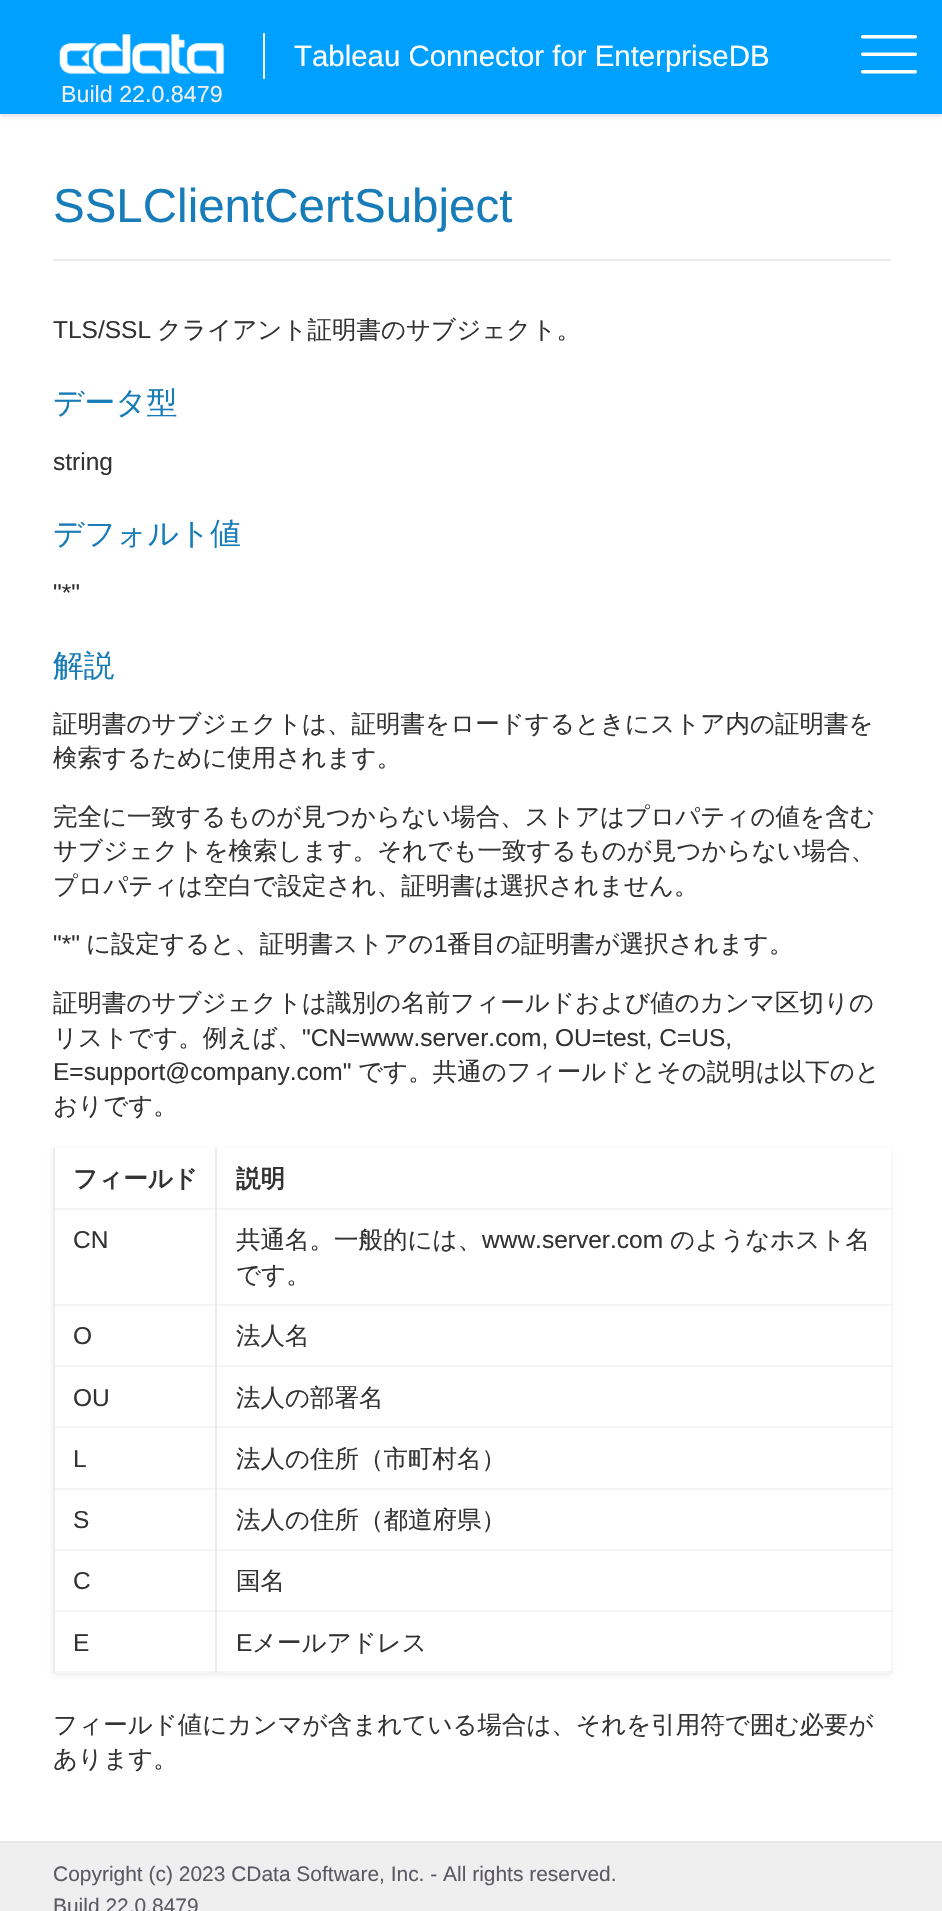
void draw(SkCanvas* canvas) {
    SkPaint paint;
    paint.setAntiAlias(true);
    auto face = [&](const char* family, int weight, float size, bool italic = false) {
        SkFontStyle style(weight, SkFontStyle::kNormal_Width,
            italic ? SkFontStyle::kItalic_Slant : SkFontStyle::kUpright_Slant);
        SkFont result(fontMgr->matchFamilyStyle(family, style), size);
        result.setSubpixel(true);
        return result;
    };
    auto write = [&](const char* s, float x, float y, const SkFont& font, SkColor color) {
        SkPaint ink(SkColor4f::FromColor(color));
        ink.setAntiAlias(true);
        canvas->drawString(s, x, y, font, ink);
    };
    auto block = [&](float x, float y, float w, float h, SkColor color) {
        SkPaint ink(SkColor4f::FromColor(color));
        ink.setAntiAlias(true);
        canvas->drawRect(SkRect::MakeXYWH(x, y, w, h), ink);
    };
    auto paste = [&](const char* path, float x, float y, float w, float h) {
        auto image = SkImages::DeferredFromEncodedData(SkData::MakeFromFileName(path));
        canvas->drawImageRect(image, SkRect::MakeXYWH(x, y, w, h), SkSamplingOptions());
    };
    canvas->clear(SK_ColorWHITE);
    paint.setColor(SkColorSetARGB(26, 0, 0, 0));
    paint.setMaskFilter(SkMaskFilter::MakeBlur(kNormal_SkBlurStyle, 2));
    canvas->drawRect(SkRect::MakeXYWH(0, 4, 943, 113), paint);
    paint.setMaskFilter(nullptr);
    block(0, 0, 942, 114, SkColorSetRGB(0, 160, 255));
    paste("pic1.png", 59, 34, 166, 41);
    paste("pic2.png", 861, 35, 56, 39);
    block(263, 33, 2, 46, SK_ColorWHITE);
    auto kFont1 = face("Liberation Sans", 400, 29.4f);
    write("Tableau Connector for EnterpriseDB", 294, 66, kFont1, SK_ColorWHITE);
    auto kFont2 = face("Liberation Sans", 400, 23.25f);
    write("Build 22.0.8479", 61, 102, kFont2, SkColorSetRGB(239, 239, 239));
    block(53, 259, 838, 2, SkColorSetRGB(238, 235, 238));
    auto kFont3 = face("Liberation Sans", 400, 47.5f);
    write("SSLClientCertSubject", 53, 222, kFont3, SkColorSetRGB(23, 124, 184));
    auto kFont4 = face("Liberation Sans", 400, 24.5f);
    write("TLS/SSL", 53, 338, kFont4, SkColorSetRGB(51, 51, 51));
    auto kFont5 = face("WenQuanYi Zen Hei", 500, 24.5f);
    write("クライアント証明書のサブジェクト。", 157, 338, kFont5, SkColorSetRGB(51, 51, 51));
    auto kFont6 = face("WenQuanYi Zen Hei", 500, 30.75f);
    write("データ型", 53, 413, kFont6, SkColorSetRGB(23, 124, 184));
    write("string", 53, 470, kFont4, SkColorSetRGB(51, 51, 51));
    write("デフォルト値", 53, 544, kFont6, SkColorSetRGB(23, 124, 184));
    write("\"*\"", 53, 601, kFont4, SkColorSetRGB(51, 51, 51));
    write("解説", 53, 676, kFont6, SkColorSetRGB(23, 124, 184));
    write("証明書のサブジェクトは、証明書をロードするときにストア内の証明書を", 53, 732, kFont5, SkColorSetRGB(51, 51, 51));
    write("検索するために使用されます。", 53, 766, kFont5, SkColorSetRGB(51, 51, 51));
    write("完全に一致するものが見つからない場合、ストアはプロパティの値を含む", 53, 825, kFont5, SkColorSetRGB(51, 51, 51));
    write("サブジェクトを検索します。それでも一致するものが見つからない場合、", 53, 859, kFont5, SkColorSetRGB(51, 51, 51));
    write("プロパティは空白で設定され、証明書は選択されません。", 53, 894, kFont5, SkColorSetRGB(51, 51, 51));
    write("\"*\"", 53, 952, kFont4, SkColorSetRGB(51, 51, 51));
    write("に設定すると、証明書ストアの", 86, 952, kFont5, SkColorSetRGB(51, 51, 51));
    write("1", 434, 952, kFont4, SkColorSetRGB(51, 51, 51));
    write("番目の証明書が選択されます。", 447, 952, kFont5, SkColorSetRGB(51, 51, 51));
    write("証明書のサブジェクトは識別の名前フィールドおよび値のカンマ区切りの", 53, 1011, kFont5, SkColorSetRGB(51, 51, 51));
    write("リストです。例えば、", 53, 1046, kFont5, SkColorSetRGB(51, 51, 51));
    write("\"CN=www.server.com, OU=test, C=US,", 302, 1046, kFont4, SkColorSetRGB(51, 51, 51));
    write("E=support@company.com\"", 53, 1080, kFont4, SkColorSetRGB(51, 51, 51));
    write("です。共通のフィールドとその説明は以下のと", 358, 1080, kFont5, SkColorSetRGB(51, 51, 51));
    write("おりです。", 53, 1114, kFont5, SkColorSetRGB(51, 51, 51));
    canvas->save();
    canvas->clipPath(SkPathBuilder(SkPathFillType::kEvenOdd).moveTo(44, 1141).lineTo(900, 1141).lineTo(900, 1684).lineTo(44, 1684).close().moveTo(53, 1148).lineTo(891, 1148).lineTo(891, 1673).lineTo(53, 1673).close().detach(), true);
    paint.setColor(SkColorSetARGB(18, 0, 0, 0));
    paint.setMaskFilter(SkMaskFilter::MakeBlur(kNormal_SkBlurStyle, 2.5f));
    canvas->drawRect(SkRect::MakeXYWH(53, 1150, 838, 525), paint);
    paint.setMaskFilter(nullptr);
    canvas->restore();
    block(890, 1155, 1, 515, SK_ColorWHITE);
    block(215, 1671, 678, 2, SkColorSetARGB(128, 238, 235, 238));
    block(215, 1610, 2, 63, SkColorSetRGB(238, 235, 238));
    block(215, 1610, 678, 2, SkColorSetARGB(128, 238, 235, 238));
    block(215, 1549, 2, 63, SkColorSetRGB(238, 235, 238));
    block(215, 1549, 678, 2, SkColorSetARGB(128, 238, 235, 238));
    block(215, 1488, 2, 63, SkColorSetRGB(238, 235, 238));
    block(215, 1488, 678, 2, SkColorSetARGB(128, 238, 235, 238));
    block(215, 1426, 2, 63, SkColorSetRGB(238, 235, 238));
    block(215, 1426, 678, 2, SkColorSetARGB(128, 238, 235, 238));
    block(215, 1365, 2, 63, SkColorSetRGB(238, 235, 238));
    block(215, 1365, 678, 2, SkColorSetARGB(128, 238, 235, 238));
    block(215, 1304, 2, 63, SkColorSetRGB(238, 235, 238));
    block(215, 1304, 678, 2, SkColorSetARGB(128, 238, 235, 238));
    block(215, 1208, 2, 98, SkColorSetRGB(238, 235, 238));
    block(215, 1208, 678, 2, SkColorSetARGB(128, 238, 235, 238));
    block(215, 1148, 2, 61, SkColorSetRGB(238, 235, 238));
    block(53, 1671, 164, 2, SkColorSetARGB(128, 238, 235, 238));
    block(53, 1610, 2, 63, SkColorSetRGB(238, 235, 238));
    block(53, 1610, 164, 2, SkColorSetARGB(128, 238, 235, 238));
    block(53, 1549, 2, 63, SkColorSetRGB(238, 235, 238));
    block(53, 1549, 164, 2, SkColorSetARGB(128, 238, 235, 238));
    block(53, 1488, 2, 63, SkColorSetRGB(238, 235, 238));
    block(53, 1488, 164, 2, SkColorSetARGB(128, 238, 235, 238));
    block(53, 1426, 2, 63, SkColorSetRGB(238, 235, 238));
    block(53, 1426, 164, 2, SkColorSetARGB(128, 238, 235, 238));
    block(53, 1365, 2, 63, SkColorSetRGB(238, 235, 238));
    block(53, 1365, 164, 2, SkColorSetARGB(128, 238, 235, 238));
    block(53, 1304, 2, 63, SkColorSetRGB(238, 235, 238));
    block(53, 1304, 164, 2, SkColorSetARGB(128, 238, 235, 238));
    block(53, 1208, 2, 98, SkColorSetRGB(238, 235, 238));
    block(53, 1208, 164, 2, SkColorSetARGB(128, 238, 235, 238));
    block(53, 1148, 2, 61, SkColorSetRGB(238, 235, 238));
    auto kFont7 = face("WenQuanYi Zen Hei", 700, 24.5f);
    write("フィールド", 73, 1187, kFont7, SkColorSetRGB(51, 51, 51));
    write("説明", 236, 1187, kFont7, SkColorSetRGB(51, 51, 51));
    write("CN", 73, 1248, kFont4, SkColorSetRGB(51, 51, 51));
    write("共通名。一般的には、", 236, 1248, kFont5, SkColorSetRGB(51, 51, 51));
    write("www.server.com", 482, 1248, kFont4, SkColorSetRGB(51, 51, 51));
    write("のようなホスト名", 670, 1248, kFont5, SkColorSetRGB(51, 51, 51));
    write("です。", 236, 1283, kFont5, SkColorSetRGB(51, 51, 51));
    write("O", 73, 1344, kFont4, SkColorSetRGB(51, 51, 51));
    write("法人名", 236, 1344, kFont5, SkColorSetRGB(51, 51, 51));
    write("OU", 73, 1406, kFont4, SkColorSetRGB(51, 51, 51));
    write("法人の部署名", 236, 1406, kFont5, SkColorSetRGB(51, 51, 51));
    write("L", 73, 1467, kFont4, SkColorSetRGB(51, 51, 51));
    write("法人の住所（市町村名）", 236, 1467, kFont5, SkColorSetRGB(51, 51, 51));
    write("S", 73, 1528, kFont4, SkColorSetRGB(51, 51, 51));
    write("法人の住所（都道府県）", 236, 1528, kFont5, SkColorSetRGB(51, 51, 51));
    write("C", 73, 1589, kFont4, SkColorSetRGB(51, 51, 51));
    write("国名", 236, 1589, kFont5, SkColorSetRGB(51, 51, 51));
    write("E", 73, 1651, kFont4, SkColorSetRGB(51, 51, 51));
    write("E", 236, 1651, kFont4, SkColorSetRGB(51, 51, 51));
    write("メールアドレス", 252, 1651, kFont5, SkColorSetRGB(51, 51, 51));
    write("フィールド値にカンマが含まれている場合は、それを引用符で囲む必要が", 53, 1733, kFont5, SkColorSetRGB(51, 51, 51));
    write("あります。", 53, 1767, kFont5, SkColorSetRGB(51, 51, 51));
    block(0, 1843, 942, 68, SkColorSetRGB(239, 239, 239));
    block(0, 1841, 942, 2, SkColorSetRGB(232, 232, 232));
    auto kFont8 = face("Liberation Sans", 400, 20.95f);
    write("Copyright (c) 2023 CData Software, Inc. - All rights reserved.", 53, 1881, kFont8, SkColorSetRGB(92, 89, 98));
    write("Build 22.0.8479", 53, 1913, kFont8, SkColorSetRGB(92, 89, 98));
}
